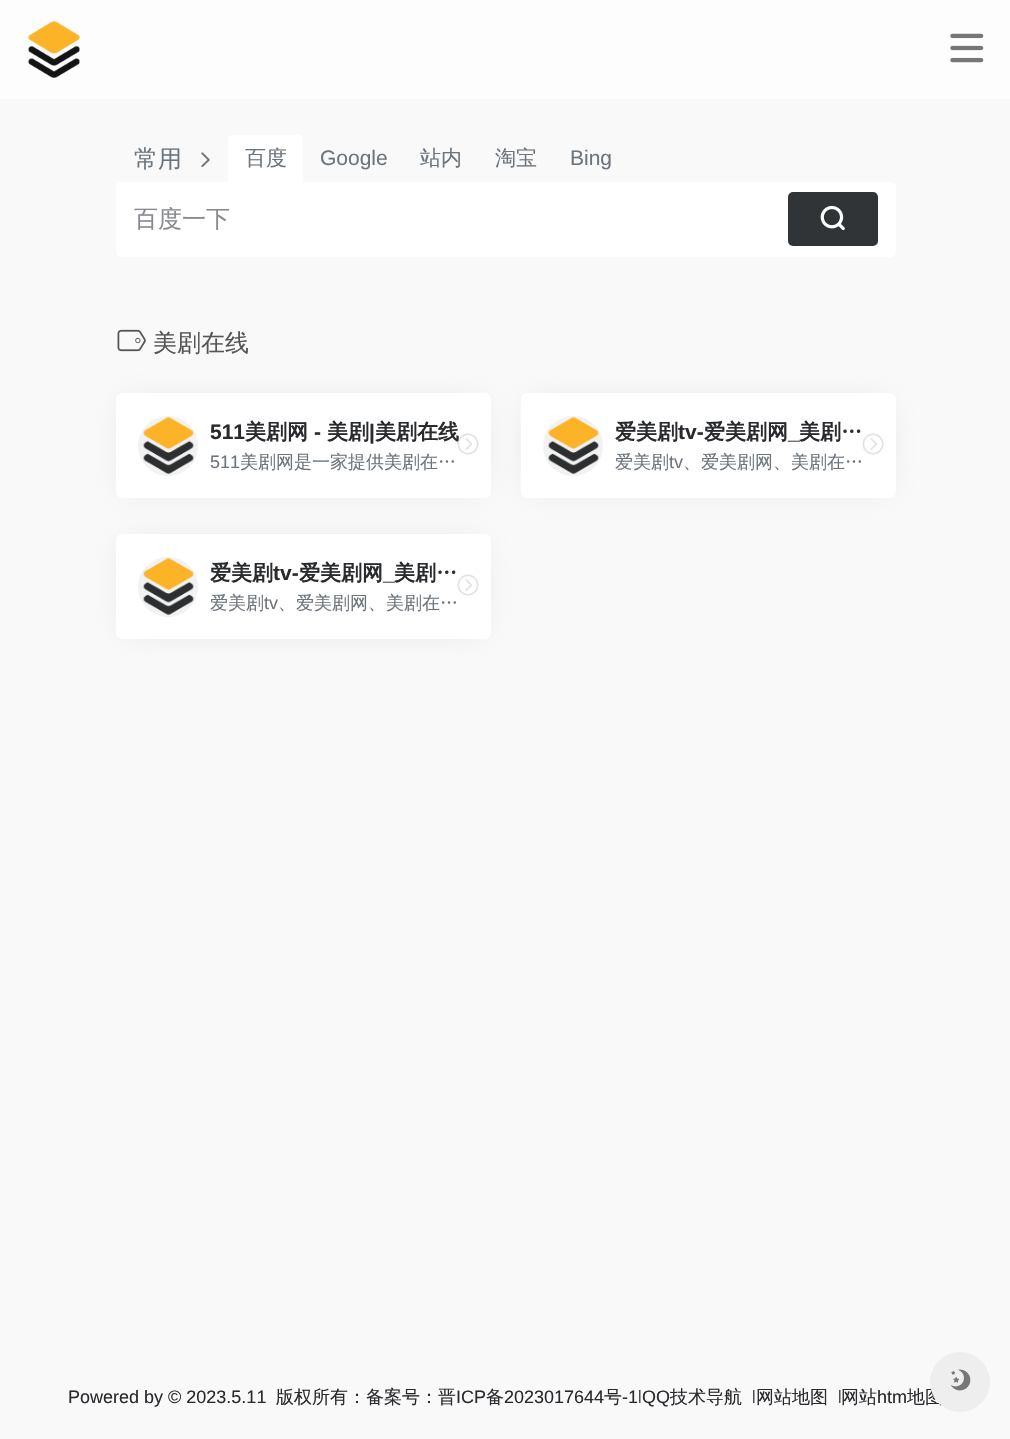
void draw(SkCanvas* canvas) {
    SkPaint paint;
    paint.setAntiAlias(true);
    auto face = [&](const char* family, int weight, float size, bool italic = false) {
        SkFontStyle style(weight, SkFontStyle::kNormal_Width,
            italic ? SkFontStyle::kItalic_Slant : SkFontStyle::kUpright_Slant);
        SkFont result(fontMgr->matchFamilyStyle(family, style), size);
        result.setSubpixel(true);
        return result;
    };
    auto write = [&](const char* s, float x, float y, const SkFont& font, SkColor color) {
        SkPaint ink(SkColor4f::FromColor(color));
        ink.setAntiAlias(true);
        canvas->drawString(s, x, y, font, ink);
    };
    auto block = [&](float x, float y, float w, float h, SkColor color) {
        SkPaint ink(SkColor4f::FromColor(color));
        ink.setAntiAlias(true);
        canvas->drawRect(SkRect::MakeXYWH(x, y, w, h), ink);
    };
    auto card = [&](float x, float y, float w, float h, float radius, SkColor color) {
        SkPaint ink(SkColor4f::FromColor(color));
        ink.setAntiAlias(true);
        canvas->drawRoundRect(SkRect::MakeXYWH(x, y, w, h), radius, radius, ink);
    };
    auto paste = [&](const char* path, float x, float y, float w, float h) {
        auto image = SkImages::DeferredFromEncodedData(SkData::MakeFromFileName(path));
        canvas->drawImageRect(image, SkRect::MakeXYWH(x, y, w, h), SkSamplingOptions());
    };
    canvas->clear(SkColorSetRGB(249, 249, 249));
    block(0, 0, 1010, 99, SkColorSetRGB(253, 253, 253));
    paste("pic1.png", 28, 21, 52, 57);
    paste("pic2.png", 950, 33, 34, 30);
    auto kFont1 = face("WenQuanYi Zen Hei", 500, 24);
    write("常用", 134, 167, kFont1, SkColorSetRGB(108, 117, 125));
    paste("pic3.png", 201, 152, 9, 15);
    paint.setColor(SK_ColorWHITE);
    canvas->drawPath(SkPathBuilder().moveTo(233, 135).lineTo(298, 135).cubicTo(301, 135, 303, 137, 303, 140).lineTo(303, 182).lineTo(228, 182).lineTo(228, 140).cubicTo(228, 137, 230, 135, 233, 135).close().detach(), paint);
    auto kFont2 = face("WenQuanYi Zen Hei", 500, 21);
    write("百度", 245, 165, kFont2, SkColorSetRGB(108, 117, 125));
    auto kFont3 = face("Liberation Sans", 400, 21);
    write("Google", 320, 165, kFont3, SkColorSetRGB(108, 117, 125));
    write("站内", 420, 165, kFont2, SkColorSetRGB(108, 117, 125));
    write("淘宝", 495, 165, kFont2, SkColorSetRGB(108, 117, 125));
    write("Bing", 570, 165, kFont3, SkColorSetRGB(108, 117, 125));
    card(116, 182, 780, 75, 5, SK_ColorWHITE);
    write("百度一下", 134, 227, kFont1, SkColorSetRGB(136, 138, 143));
    card(788, 192, 90, 54, 5, SkColorSetRGB(49, 52, 55));
    paste("pic4.png", 820, 205, 25, 26);
    paste("pic5.png", 117, 329, 29, 23);
    write("美剧在线", 153, 351, kFont1, SkColorSetRGB(85, 85, 85));
    paint.setColor(SkColorSetARGB(51, 158, 158, 158));
    paint.setMaskFilter(SkMaskFilter::MakeBlur(kNormal_SkBlurStyle, 15));
    canvas->drawRect(SkRect::MakeXYWH(123, 401, 360, 90), paint);
    paint.setMaskFilter(nullptr);
    card(116, 393, 375, 105, 6, SK_ColorWHITE);
    paint.setColor(SkColorSetRGB(242, 242, 242));
    canvas->drawCircle(168, 446, 30, paint);
    paste("pic6.png", 143, 417, 51, 57);
    auto kFont4 = face("Liberation Sans", 700, 21);
    write("511", 210, 439, kFont4, SkColorSetRGB(40, 42, 45));
    auto kFont5 = face("WenQuanYi Zen Hei", 700, 21);
    write("美剧网", 245, 439, kFont5, SkColorSetRGB(40, 42, 45));
    write("-", 314, 439, kFont4, SkColorSetRGB(40, 42, 45));
    write("美剧", 327, 439, kFont5, SkColorSetRGB(40, 42, 45));
    write("|", 369, 439, kFont4, SkColorSetRGB(40, 42, 45));
    write("美剧在线", 375, 439, kFont5, SkColorSetRGB(40, 42, 45));
    auto kFont6 = face("Liberation Sans", 400, 18);
    write("511", 210, 468, kFont6, SkColorSetRGB(108, 117, 125));
    auto kFont7 = face("WenQuanYi Zen Hei", 500, 18);
    write("美剧网是一家提供美剧在…", 240, 468, kFont7, SkColorSetRGB(108, 117, 125));
    paste("pic7.png", 457, 433, 22, 22);
    paint.setColor(SkColorSetARGB(51, 158, 158, 158));
    paint.setMaskFilter(SkMaskFilter::MakeBlur(kNormal_SkBlurStyle, 15));
    canvas->drawRect(SkRect::MakeXYWH(528, 401, 360, 90), paint);
    paint.setMaskFilter(nullptr);
    card(521, 393, 375, 105, 6, SK_ColorWHITE);
    paint.setColor(SkColorSetRGB(242, 242, 242));
    canvas->drawCircle(573, 446, 30, paint);
    paste("pic8.png", 548, 417, 51, 57);
    write("爱美剧", 615, 439, kFont5, SkColorSetRGB(40, 42, 45));
    write("tv-", 678, 439, kFont4, SkColorSetRGB(40, 42, 45));
    write("爱美剧网", 704, 439, kFont5, SkColorSetRGB(40, 42, 45));
    write("美剧…", 799, 439, kFont5, SkColorSetRGB(40, 42, 45));
    write("_", 788, 439, kFont4, SkColorSetRGB(40, 42, 45));
    write("爱美剧", 615, 468, kFont7, SkColorSetRGB(108, 117, 125));
    write("tv", 669, 468, kFont6, SkColorSetRGB(108, 117, 125));
    write("、爱美剧网、美剧在…", 683, 468, kFont7, SkColorSetRGB(108, 117, 125));
    paste("pic9.png", 862, 433, 22, 22);
    paint.setColor(SkColorSetARGB(51, 158, 158, 158));
    paint.setMaskFilter(SkMaskFilter::MakeBlur(kNormal_SkBlurStyle, 15));
    canvas->drawRect(SkRect::MakeXYWH(123, 542, 360, 90), paint);
    paint.setMaskFilter(nullptr);
    card(116, 534, 375, 105, 6, SK_ColorWHITE);
    paint.setColor(SkColorSetRGB(242, 242, 242));
    canvas->drawCircle(168, 587, 30, paint);
    paste("pic6.png", 143, 558, 51, 57);
    write("爱美剧", 210, 580, kFont5, SkColorSetRGB(40, 42, 45));
    write("tv-", 273, 580, kFont4, SkColorSetRGB(40, 42, 45));
    write("爱美剧网", 299, 580, kFont5, SkColorSetRGB(40, 42, 45));
    write("美剧…", 394, 580, kFont5, SkColorSetRGB(40, 42, 45));
    write("_", 383, 580, kFont4, SkColorSetRGB(40, 42, 45));
    write("爱美剧", 210, 609, kFont7, SkColorSetRGB(108, 117, 125));
    write("tv", 264, 609, kFont6, SkColorSetRGB(108, 117, 125));
    write("、爱美剧网、美剧在…", 278, 609, kFont7, SkColorSetRGB(108, 117, 125));
    paste("pic9.png", 457, 574, 22, 22);
    write("Powered by © 2023.5.11", 68, 1403, kFont6, SkColorSetRGB(40, 42, 45));
    write("版权所有：备案号：晋", 276, 1403, kFont7, SkColorSetRGB(40, 42, 45));
    write("ICP", 456, 1403, kFont6, SkColorSetRGB(40, 42, 45));
    write("备", 486, 1403, kFont7, SkColorSetRGB(40, 42, 45));
    write("2023017644", 504, 1403, kFont6, SkColorSetRGB(40, 42, 45));
    write("号", 604, 1403, kFont7, SkColorSetRGB(40, 42, 45));
    write("-1", 622, 1403, kFont6, SkColorSetRGB(40, 42, 45));
    auto kFont8 = face("FreeSans", 400, 18);
    write("꘡", 638, 1403, kFont8, SkColorSetRGB(40, 42, 45));
    write("QQ", 642, 1403, kFont6, SkColorSetRGB(40, 42, 45));
    write("技术导航", 670, 1403, kFont7, SkColorSetRGB(40, 42, 45));
    write("꘡", 752, 1403, kFont8, SkColorSetRGB(40, 42, 45));
    write("网站地图", 756, 1403, kFont7, SkColorSetRGB(40, 42, 45));
    write("꘡", 838, 1403, kFont8, SkColorSetRGB(40, 42, 45));
    write("网站", 841, 1403, kFont7, SkColorSetRGB(40, 42, 45));
    write("htm", 877, 1403, kFont6, SkColorSetRGB(40, 42, 45));
    write("地图", 907, 1403, kFont7, SkColorSetRGB(40, 42, 45));
    paint.setColor(SkColorSetRGB(238, 238, 238));
    canvas->drawCircle(960, 1382, 30, paint);
    paste("pic10.png", 951, 1369, 20, 22);
}
